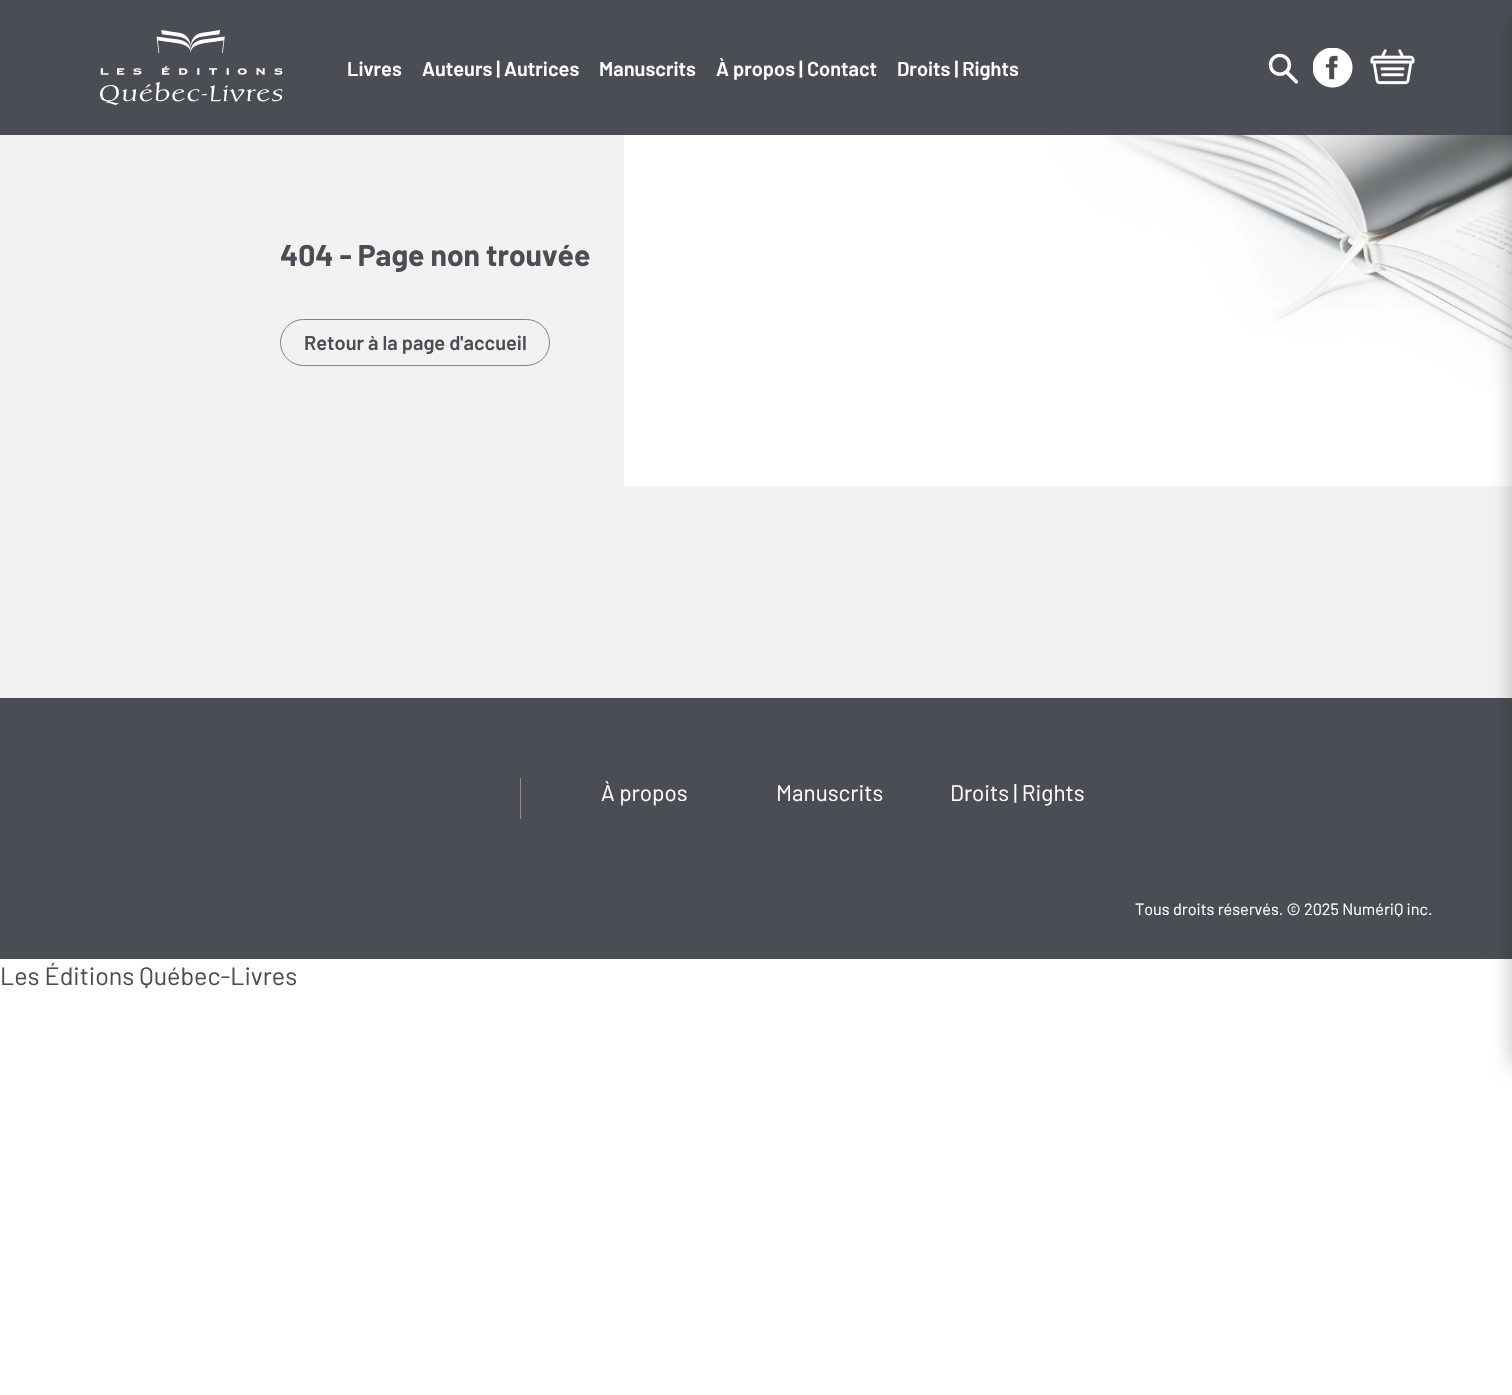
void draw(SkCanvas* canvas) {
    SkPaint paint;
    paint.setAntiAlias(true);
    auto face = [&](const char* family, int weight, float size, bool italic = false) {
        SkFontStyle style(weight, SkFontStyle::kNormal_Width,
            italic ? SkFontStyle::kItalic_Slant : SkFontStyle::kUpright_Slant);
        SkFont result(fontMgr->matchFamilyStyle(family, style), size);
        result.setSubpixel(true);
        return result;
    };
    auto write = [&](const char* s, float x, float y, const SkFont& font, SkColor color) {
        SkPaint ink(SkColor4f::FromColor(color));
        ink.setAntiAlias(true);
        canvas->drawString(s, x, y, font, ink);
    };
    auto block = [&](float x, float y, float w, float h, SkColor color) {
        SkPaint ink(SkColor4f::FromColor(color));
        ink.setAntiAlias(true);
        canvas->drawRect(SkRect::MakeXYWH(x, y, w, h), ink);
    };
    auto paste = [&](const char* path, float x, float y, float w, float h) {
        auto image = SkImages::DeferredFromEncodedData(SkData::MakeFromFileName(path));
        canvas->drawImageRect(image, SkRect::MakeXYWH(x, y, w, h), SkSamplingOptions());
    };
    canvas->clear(SK_ColorWHITE);
    block(0, 135, 1512, 563, SkColorSetRGB(242, 242, 242));
    block(0, 0, 1512, 135, SkColorSetRGB(74, 78, 84));
    paste("pic1.png", 100, 30, 183, 75);
    auto kFont1 = face("Barlow", 600, 20);
    write("Livres", 347, 76, kFont1, SK_ColorWHITE);
    write("Auteurs | Autrices", 422, 76, kFont1, SK_ColorWHITE);
    write("Manuscrits", 599, 76, kFont1, SK_ColorWHITE);
    write("À propos | Contact", 716, 76, kFont1, SK_ColorWHITE);
    write("Droits | Rights", 897, 76, kFont1, SK_ColorWHITE);
    paste("pic2.png", 1268, 53, 31, 31);
    paste("pic3.png", 1313, 48, 40, 40);
    paste("pic4.png", 1370, 49, 45, 36);
    paste("pic5.png", 624, 135, 888, 351);
    block(0, 698, 1512, 261, SkColorSetRGB(74, 78, 84));
    paint.setColor(SkColorSetARGB(51, 0, 0, 0));
    paint.setMaskFilter(SkMaskFilter::MakeBlur(kNormal_SkBlurStyle, 9.5f));
    canvas->drawRoundRect(SkRect::MakeXYWH(1510, 15, 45, 1053), 14, 14, paint);
    paint.setMaskFilter(nullptr);
    auto kFont2 = face("Barlow", 700, 30);
    write("404 - Page non trouvée", 280, 266, kFont2, SkColorSetRGB(74, 78, 84));
    paint.setStyle(SkPaint::kStroke_Style);
    paint.setStrokeWidth(1);
    paint.setColor(SkColorSetRGB(129, 133, 135));
    canvas->drawRoundRect(SkRect::MakeXYWH(280.5f, 319.5f, 269, 46), 23, 23, paint);
    write("Retour à la page d'accueil", 304, 350, kFont1, SkColorSetRGB(74, 78, 84));
    block(520, 778, 1, 41, SkColorSetRGB(143, 143, 143));
    auto kFont3 = face("Barlow", 400, 22.5f);
    write("À propos", 601, 801, kFont3, SK_ColorWHITE);
    write("Manuscrits", 776, 801, kFont3, SK_ColorWHITE);
    write("Droits | Rights", 950, 801, kFont3, SK_ColorWHITE);
    auto kFont4 = face("Barlow", 400, 16.25f);
    write("Tous droits réservés. © 2025 NumériQ inc.", 1135, 915, kFont4, SK_ColorWHITE);
    auto kFont5 = face("Barlow", 400, 25);
    write("Les Éditions Québec-Livres", 0, 985, kFont5, SkColorSetRGB(74, 78, 84));
}
